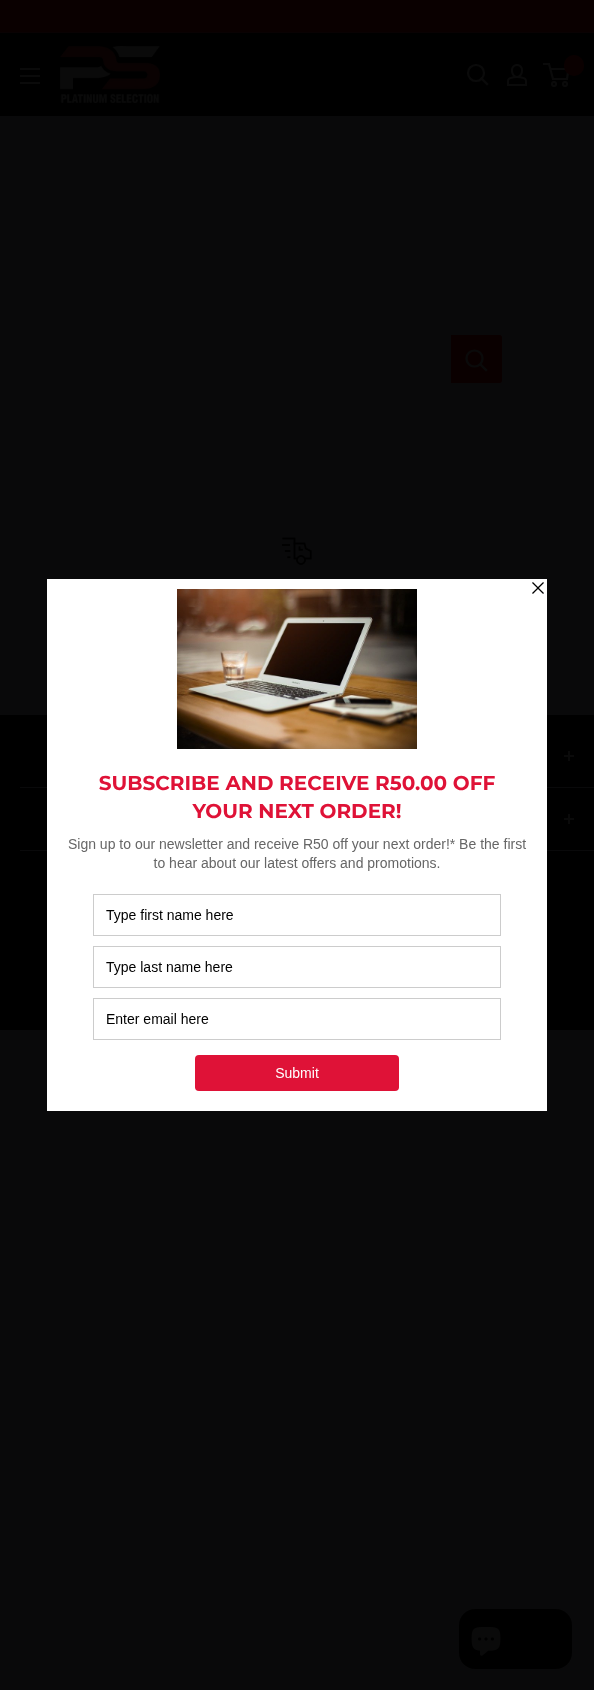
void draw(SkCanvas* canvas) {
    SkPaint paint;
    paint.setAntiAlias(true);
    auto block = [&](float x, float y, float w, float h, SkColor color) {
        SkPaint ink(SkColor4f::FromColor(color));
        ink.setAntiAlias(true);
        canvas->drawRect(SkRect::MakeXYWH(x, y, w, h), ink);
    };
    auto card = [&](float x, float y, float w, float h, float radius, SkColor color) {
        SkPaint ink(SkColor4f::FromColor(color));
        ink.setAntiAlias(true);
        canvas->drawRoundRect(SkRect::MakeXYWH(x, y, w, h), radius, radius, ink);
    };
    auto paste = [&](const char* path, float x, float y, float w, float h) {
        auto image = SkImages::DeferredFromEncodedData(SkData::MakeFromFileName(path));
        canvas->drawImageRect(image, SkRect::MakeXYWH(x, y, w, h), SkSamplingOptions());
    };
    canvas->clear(SkColorSetRGB(9, 9, 10));
    block(0, 0, 594, 32, SkColorSetRGB(10, 0, 0));
    block(0, 32, 594, 1, SkColorSetRGB(9, 2, 3));
    block(0, 33, 594, 83, SK_ColorBLACK);
    paste("pic1.png", 20, 68, 20, 16);
    paste("pic2.png", 60, 46, 100, 57);
    paint.setStyle(SkPaint::kStroke_Style);
    paint.setStrokeWidth(2.1f);
    paint.setStrokeCap(SkPaint::kSquare_Cap);
    paint.setColor(SkColorSetRGB(10, 10, 10));
    canvas->drawPath(SkPathBuilder().moveTo(487, 84).lineTo(481.5f, 78.5f).detach(), paint);
    paint.setStrokeCap(SkPaint::kButt_Cap);
    canvas->drawCircle(476, 73, 8, paint);
    paste("pic3.png", 507, 64, 20, 22);
    paint.setStrokeWidth(2);
    canvas->drawCircle(554, 84, 2, paint);
    canvas->drawCircle(565, 84, 2, paint);
    canvas->drawPath(SkPathBuilder().moveTo(550.5f, 69).lineTo(568.5f, 69).lineTo(567, 79).lineTo(553, 79).lineTo(549, 64).lineTo(543, 64).detach(), paint);
    card(564, 55, 20, 21, 10, SkColorSetRGB(10, 0, 0));
    paint.setStyle(SkPaint::kFill_Style);
    paint.setColor(SkColorSetRGB(10, 0, 0));
    canvas->drawPath(SkPathBuilder().moveTo(451, 335).lineTo(500, 335).cubicTo(501, 335, 502, 336, 502, 337).lineTo(502, 381).cubicTo(502, 382, 501, 383, 500, 383).lineTo(451, 383).close().detach(), paint);
    paint.setStyle(SkPaint::kStroke_Style);
    paint.setStrokeWidth(2.2f);
    paint.setStrokeCap(SkPaint::kSquare_Cap);
    paint.setColor(SkColorSetRGB(10, 10, 10));
    canvas->drawPath(SkPathBuilder().moveTo(486, 370).lineTo(480.5f, 364.5f).detach(), paint);
    paint.setStrokeCap(SkPaint::kButt_Cap);
    canvas->drawCircle(474.5f, 358.5f, 8, paint);
    paste("pic4.png", 282, 537, 30, 28);
    block(0, 715, 594, 315, SK_ColorBLACK);
    block(20, 787, 574, 1, SkColorSetRGB(9, 9, 10));
    block(20, 850, 574, 1, SkColorSetRGB(9, 9, 10));
    paste("pic5.png", 47, 579, 500, 532);
    block(568, 751, 2, 10, SkColorSetRGB(10, 10, 10));
    block(564, 755, 10, 2, SkColorSetRGB(10, 10, 10));
    block(568, 814, 2, 10, SkColorSetRGB(10, 10, 10));
    block(564, 818, 10, 2, SkColorSetRGB(10, 10, 10));
    card(459, 1609, 113, 60, 16, SK_ColorBLACK);
    paste("pic6.png", 471, 1627, 30, 29);
}
